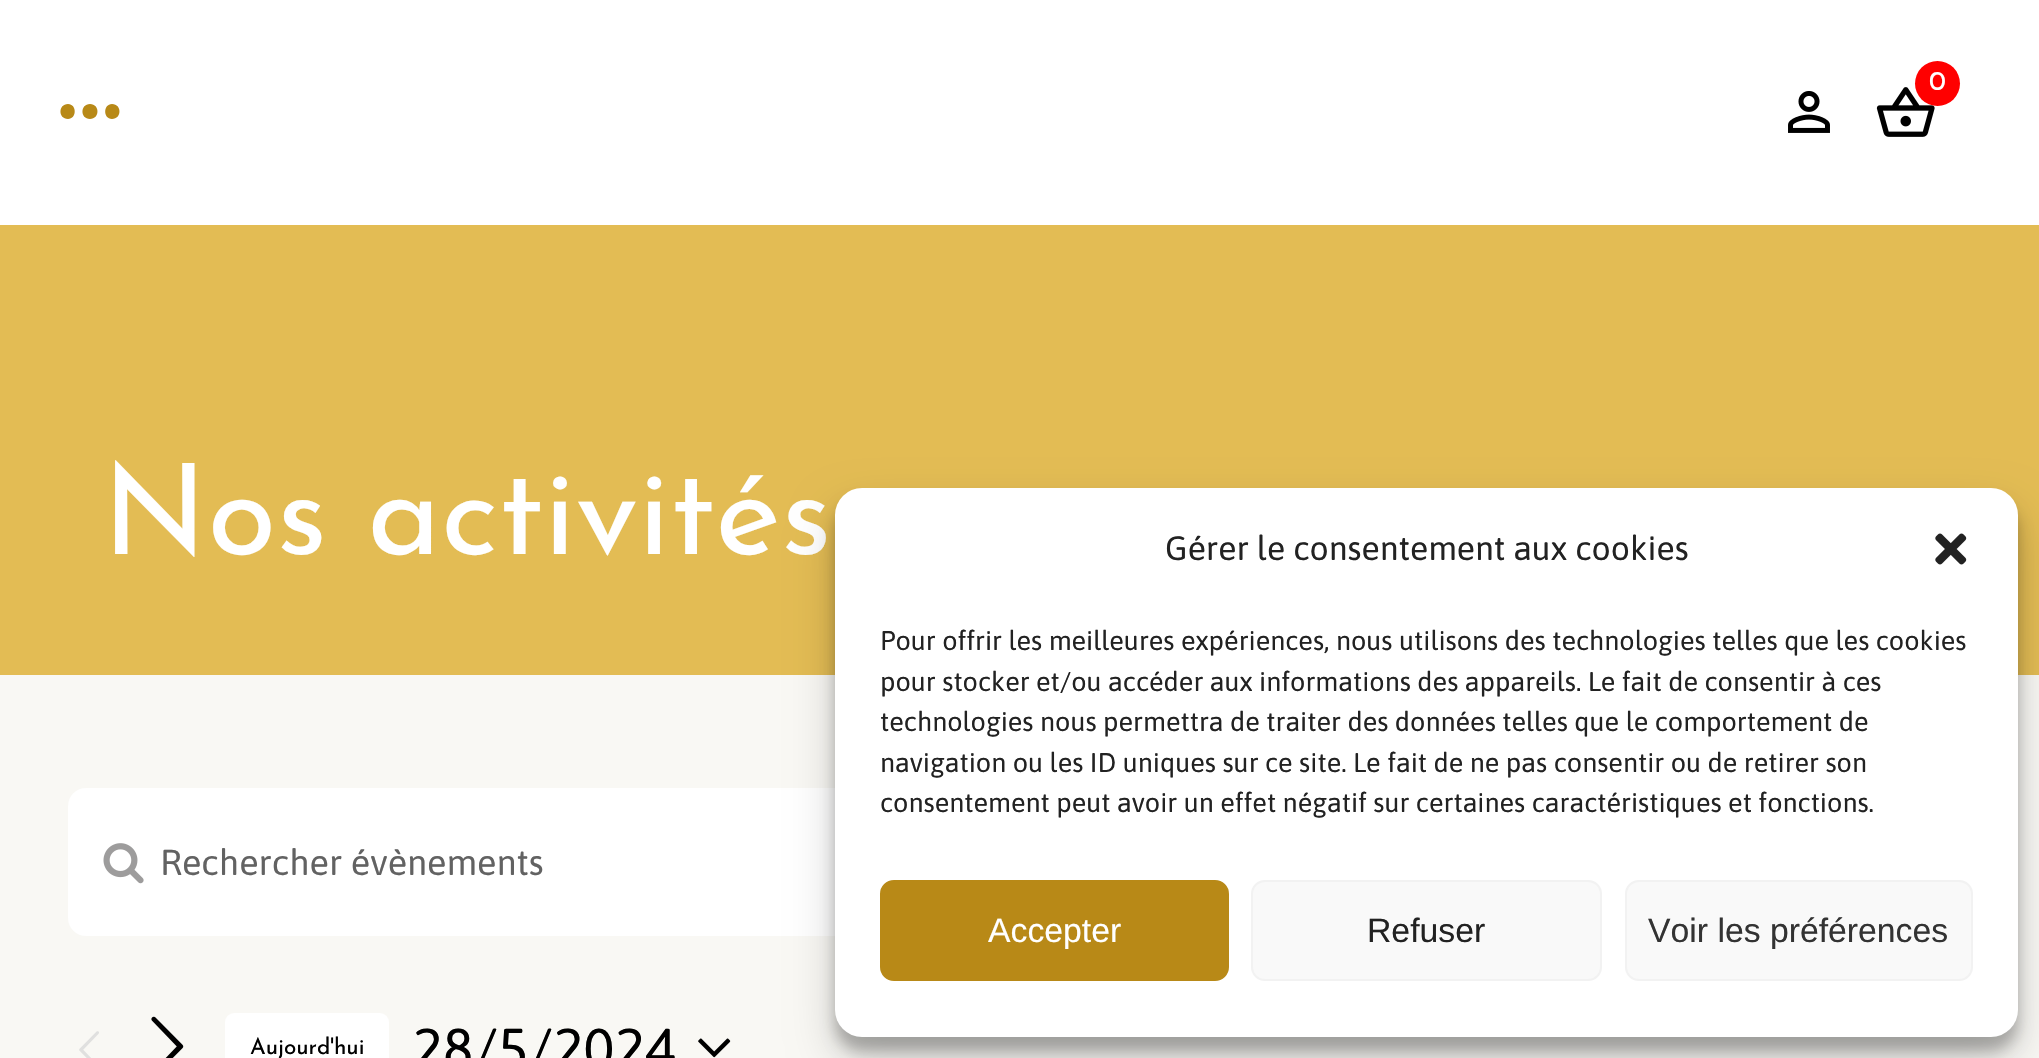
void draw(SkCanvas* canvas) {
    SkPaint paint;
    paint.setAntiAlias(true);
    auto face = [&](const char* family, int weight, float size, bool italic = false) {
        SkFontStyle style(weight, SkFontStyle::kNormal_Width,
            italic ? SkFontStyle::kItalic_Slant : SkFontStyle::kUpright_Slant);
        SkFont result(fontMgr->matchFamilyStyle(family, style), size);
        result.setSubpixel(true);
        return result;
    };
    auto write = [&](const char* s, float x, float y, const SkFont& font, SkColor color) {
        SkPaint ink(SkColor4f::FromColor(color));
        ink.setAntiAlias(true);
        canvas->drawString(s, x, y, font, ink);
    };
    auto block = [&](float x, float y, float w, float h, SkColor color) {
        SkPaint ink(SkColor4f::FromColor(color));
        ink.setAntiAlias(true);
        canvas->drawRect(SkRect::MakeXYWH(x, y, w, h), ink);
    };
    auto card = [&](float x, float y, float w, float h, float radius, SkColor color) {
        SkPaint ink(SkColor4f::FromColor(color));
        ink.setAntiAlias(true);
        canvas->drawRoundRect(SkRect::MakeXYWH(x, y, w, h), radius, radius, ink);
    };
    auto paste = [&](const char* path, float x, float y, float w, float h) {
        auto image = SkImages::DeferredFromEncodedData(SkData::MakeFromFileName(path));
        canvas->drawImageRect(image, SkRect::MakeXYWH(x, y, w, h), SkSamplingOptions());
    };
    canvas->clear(SK_ColorWHITE);
    paste("pic1.png", 1876, 87, 59, 50);
    paint.setColor(SkColorSetRGB(255, 0, 0));
    canvas->drawCircle(1937.5f, 83.5f, 22.5f, paint);
    auto kFont1 = face("Josefin Sans", 400, 27);
    write("0", 1929, 90, kFont1, SK_ColorWHITE);
    paste("pic2.png", 1788, 91, 42, 42);
    paint.setColor(SkColorSetRGB(184, 137, 23));
    canvas->drawPath(SkPathBuilder().moveTo(68, 104).cubicTo(58, 104, 58, 119, 68, 119).cubicTo(77, 119, 77, 104, 68, 104).close().moveTo(112, 104).cubicTo(103, 104, 103, 119, 112, 119).cubicTo(122, 119, 122, 104, 112, 104).close().moveTo(90, 104).cubicTo(80, 104, 80, 119, 90, 119).cubicTo(100, 119, 100, 104, 90, 104).close().detach(), paint);
    block(0, 225, 2039, 450, SkColorSetRGB(227, 188, 84));
    auto kFont2 = face("Josefin Sans", 400, 126);
    write("Nos activités", 102, 554, kFont2, SK_ColorWHITE);
    block(0, 675, 2039, 383, SkColorSetRGB(249, 248, 244));
    card(68, 788, 1905, 148, 18, SK_ColorWHITE);
    paste("pic3.png", 103, 843, 41, 41);
    auto kFont3 = face("Asap", 400, 36);
    write("Rechercher évènements", 160, 875, kFont3, SkColorSetRGB(98, 98, 98));
    paste("pic4.png", 79, 1031, 20, 27);
    paste("pic5.png", 151, 1016, 33, 42);
    card(225, 1013, 164, 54, 9, SK_ColorWHITE);
    auto kFont4 = face("Josefin Sans", 400, 22.5f);
    write("Aujourd'hui", 250, 1054, kFont4, SK_ColorBLACK);
    auto kFont5 = face("Asap", 400, 57.5f);
    write("28/5/2024", 412, 1069, kFont5, SK_ColorBLACK);
    paste("pic6.png", 698, 1038, 33, 20);
    paint.setColor(SkColorSetARGB(59, 0, 0, 0));
    paint.setMaskFilter(SkMaskFilter::MakeBlur(kNormal_SkBlurStyle, 7));
    canvas->drawRoundRect(SkRect::MakeXYWH(835, 502, 1183, 549), 27, 27, paint);
    paint.setMaskFilter(nullptr);
    paint.setColor(SkColorSetARGB(48, 0, 0, 0));
    paint.setMaskFilter(SkMaskFilter::MakeBlur(kNormal_SkBlurStyle, 22.5f));
    canvas->drawRoundRect(SkRect::MakeXYWH(835, 511, 1183, 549), 27, 27, paint);
    paint.setMaskFilter(nullptr);
    card(835, 488, 1183, 549, 27, SK_ColorWHITE);
    auto kFont6 = face("Asap", 400, 33.75f);
    write("Gérer le consentement aux cookies", 1165, 560, kFont6, SkColorSetRGB(34, 34, 34));
    paste("pic7.png", 1935, 533, 32, 32);
    auto kFont7 = face("Asap", 400, 27);
    write("Pour offrir les meilleures expériences, nous utilisons des technologies telles que les cookies", 880, 650, kFont7, SkColorSetRGB(34, 34, 34));
    write("pour stocker et/ou accéder aux informations des appareils. Le fait de consentir à ces", 880, 691, kFont7, SkColorSetRGB(34, 34, 34));
    write("technologies nous permettra de traiter des données telles que le comportement de", 880, 731, kFont7, SkColorSetRGB(34, 34, 34));
    write("navigation ou les ID uniques sur ce site. Le fait de ne pas consentir ou de retirer son", 880, 772, kFont7, SkColorSetRGB(34, 34, 34));
    write("consentement peut avoir un effet négatif sur certaines caractéristiques et fonctions.", 880, 812, kFont7, SkColorSetRGB(34, 34, 34));
    paint.setColor(SkColorSetRGB(184, 137, 23));
    canvas->drawRoundRect(SkRect::MakeXYWH(881, 881, 347, 99), 13, 13, paint);
    paint.setStyle(SkPaint::kStroke_Style);
    paint.setStrokeWidth(2);
    canvas->drawRoundRect(SkRect::MakeXYWH(881, 881, 347, 99), 13, 13, paint);
    auto kFont8 = face("Liberation Sans", 400, 33.75f);
    write("Accepter", 988, 942, kFont8, SK_ColorWHITE);
    paint.setStyle(SkPaint::kFill_Style);
    paint.setColor(SkColorSetRGB(249, 249, 249));
    canvas->drawRoundRect(SkRect::MakeXYWH(1252, 881, 349, 99), 13, 13, paint);
    paint.setStyle(SkPaint::kStroke_Style);
    paint.setColor(SkColorSetRGB(242, 242, 242));
    canvas->drawRoundRect(SkRect::MakeXYWH(1252, 881, 349, 99), 13, 13, paint);
    write("Refuser", 1367, 942, kFont8, SkColorSetRGB(34, 34, 34));
    paint.setStyle(SkPaint::kFill_Style);
    paint.setColor(SkColorSetRGB(249, 249, 249));
    canvas->drawRoundRect(SkRect::MakeXYWH(1626, 881, 346, 99), 13, 13, paint);
    paint.setStyle(SkPaint::kStroke_Style);
    paint.setColor(SkColorSetRGB(242, 242, 242));
    canvas->drawRoundRect(SkRect::MakeXYWH(1626, 881, 346, 99), 13, 13, paint);
    write("Voir les préférences", 1648, 942, kFont8, SkColorSetRGB(51, 51, 51));
}
